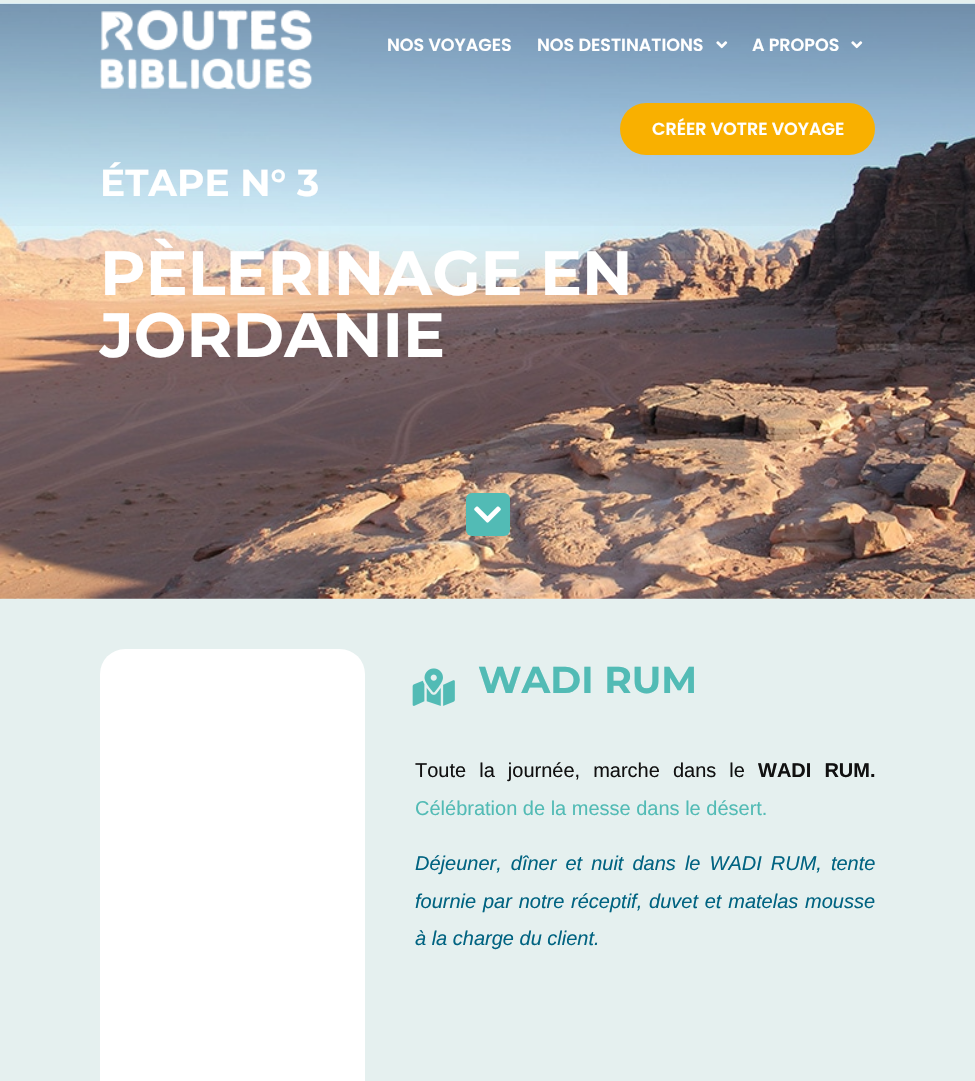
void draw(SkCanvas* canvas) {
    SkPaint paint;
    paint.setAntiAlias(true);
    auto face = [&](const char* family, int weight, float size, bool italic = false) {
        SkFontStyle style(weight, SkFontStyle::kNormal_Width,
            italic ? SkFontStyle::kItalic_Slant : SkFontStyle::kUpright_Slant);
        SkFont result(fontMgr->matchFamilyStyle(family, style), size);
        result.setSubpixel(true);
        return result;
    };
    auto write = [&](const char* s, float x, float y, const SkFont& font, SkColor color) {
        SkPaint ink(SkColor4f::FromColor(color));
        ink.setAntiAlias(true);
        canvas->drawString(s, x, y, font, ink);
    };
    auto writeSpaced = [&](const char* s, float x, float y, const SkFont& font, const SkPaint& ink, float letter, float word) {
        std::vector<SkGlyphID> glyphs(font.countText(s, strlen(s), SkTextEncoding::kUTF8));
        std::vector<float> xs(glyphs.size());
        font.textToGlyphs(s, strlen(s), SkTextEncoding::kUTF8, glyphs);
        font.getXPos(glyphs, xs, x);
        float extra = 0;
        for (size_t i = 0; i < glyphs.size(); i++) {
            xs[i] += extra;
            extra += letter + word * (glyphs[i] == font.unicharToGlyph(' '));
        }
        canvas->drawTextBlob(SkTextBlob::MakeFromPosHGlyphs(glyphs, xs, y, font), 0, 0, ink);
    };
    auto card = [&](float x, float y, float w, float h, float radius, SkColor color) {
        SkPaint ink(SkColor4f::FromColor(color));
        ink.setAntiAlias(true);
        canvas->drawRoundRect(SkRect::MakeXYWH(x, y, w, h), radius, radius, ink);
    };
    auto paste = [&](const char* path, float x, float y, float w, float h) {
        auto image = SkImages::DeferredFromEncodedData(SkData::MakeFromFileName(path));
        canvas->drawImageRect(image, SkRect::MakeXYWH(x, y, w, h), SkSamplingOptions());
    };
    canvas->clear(SkColorSetRGB(229, 240, 239));
    paste("pic4.png", 0, 3, 975, 596);
    {
        const SkColor colors[] = {SkColorSetARGB(77, 0, 0, 0), SkColorSetARGB(0, 0, 0, 0)};
        const float stops[] = {0, 0.4f};
        const SkPoint ends[] = {{487, 3.7f}, {488, 599}};
        paint.setShader(SkGradientShader::MakeLinear(ends, colors, stops, 2, SkTileMode::kClamp));
        paint.setAlpha(255);
    }
    canvas->drawRect(SkRect::MakeXYWH(0, 4, 975, 222), paint);
    paste("pic1.png", 100, 9, 213, 81);
    auto kFont1 = face("Poppins", 600, 17.5f);
    write("NOS VOYAGES", 387, 51, kFont1, SK_ColorWHITE);
    write("NOS DESTINATIONS", 537, 51, kFont1, SK_ColorWHITE);
    paste("pic2.png", 716, 41, 12, 8);
    write("A PROPOS", 752, 51, kFont1, SK_ColorWHITE);
    paste("pic3.png", 851, 41, 12, 8);
    card(620, 103, 255, 52, 26, SkColorSetRGB(249, 176, 0));
    write("CRÉER VOTRE VOYAGE", 652, 135, kFont1, SK_ColorWHITE);
    auto kFont2 = face("Montserrat", 700, 37.5f);
    write("ÉTAPE N° 3", 100, 196, kFont2, SK_ColorWHITE);
    auto kFont3 = face("Montserrat", 700, 62.5f);
    write("PÈLERINAGE EN", 100, 295, kFont3, SK_ColorWHITE);
    write("JORDANIE", 100, 357, kFont3, SK_ColorWHITE);
    card(466, 493, 44, 43, 6, SkColorSetRGB(82, 187, 181));
    paste("pic5.png", 474, 506, 27, 17);
    card(100, 649, 265, 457, 25, SK_ColorWHITE);
    paste("pic6.png", 412, 668, 43, 38);
    write("WADI RUM", 478, 693, kFont2, SkColorSetRGB(82, 187, 181));
    auto kFont4 = face("Liberation Sans", 400, 20);
    paint.setShader(nullptr);
    paint.setColor(SkColorSetRGB(17, 17, 17));
    writeSpaced("Toute la journée, marche dans le", 415, 777, kFont4, paint, 0, 7.5f);
    auto kFont5 = face("Liberation Sans", 700, 20);
    writeSpaced("WADI RUM.", 758, 777, kFont5, paint, 0, 7.5f);
    write("Célébration de la messe dans le désert.", 415, 815, kFont4, SkColorSetRGB(82, 187, 181));
    auto kFont6 = face("Liberation Sans", 400, 20, true);
    paint.setColor(SkColorSetRGB(0, 99, 129));
    writeSpaced("Déjeuner, dîner et nuit dans le WADI RUM, tente", 415, 870, kFont6, paint, 0, 3.5f);
    writeSpaced("fournie par notre réceptif, duvet et matelas mousse", 415, 908, kFont6, paint, 0, 1.25f);
    write("à la charge du client.", 415, 945, kFont6, SkColorSetRGB(0, 99, 129));
}
